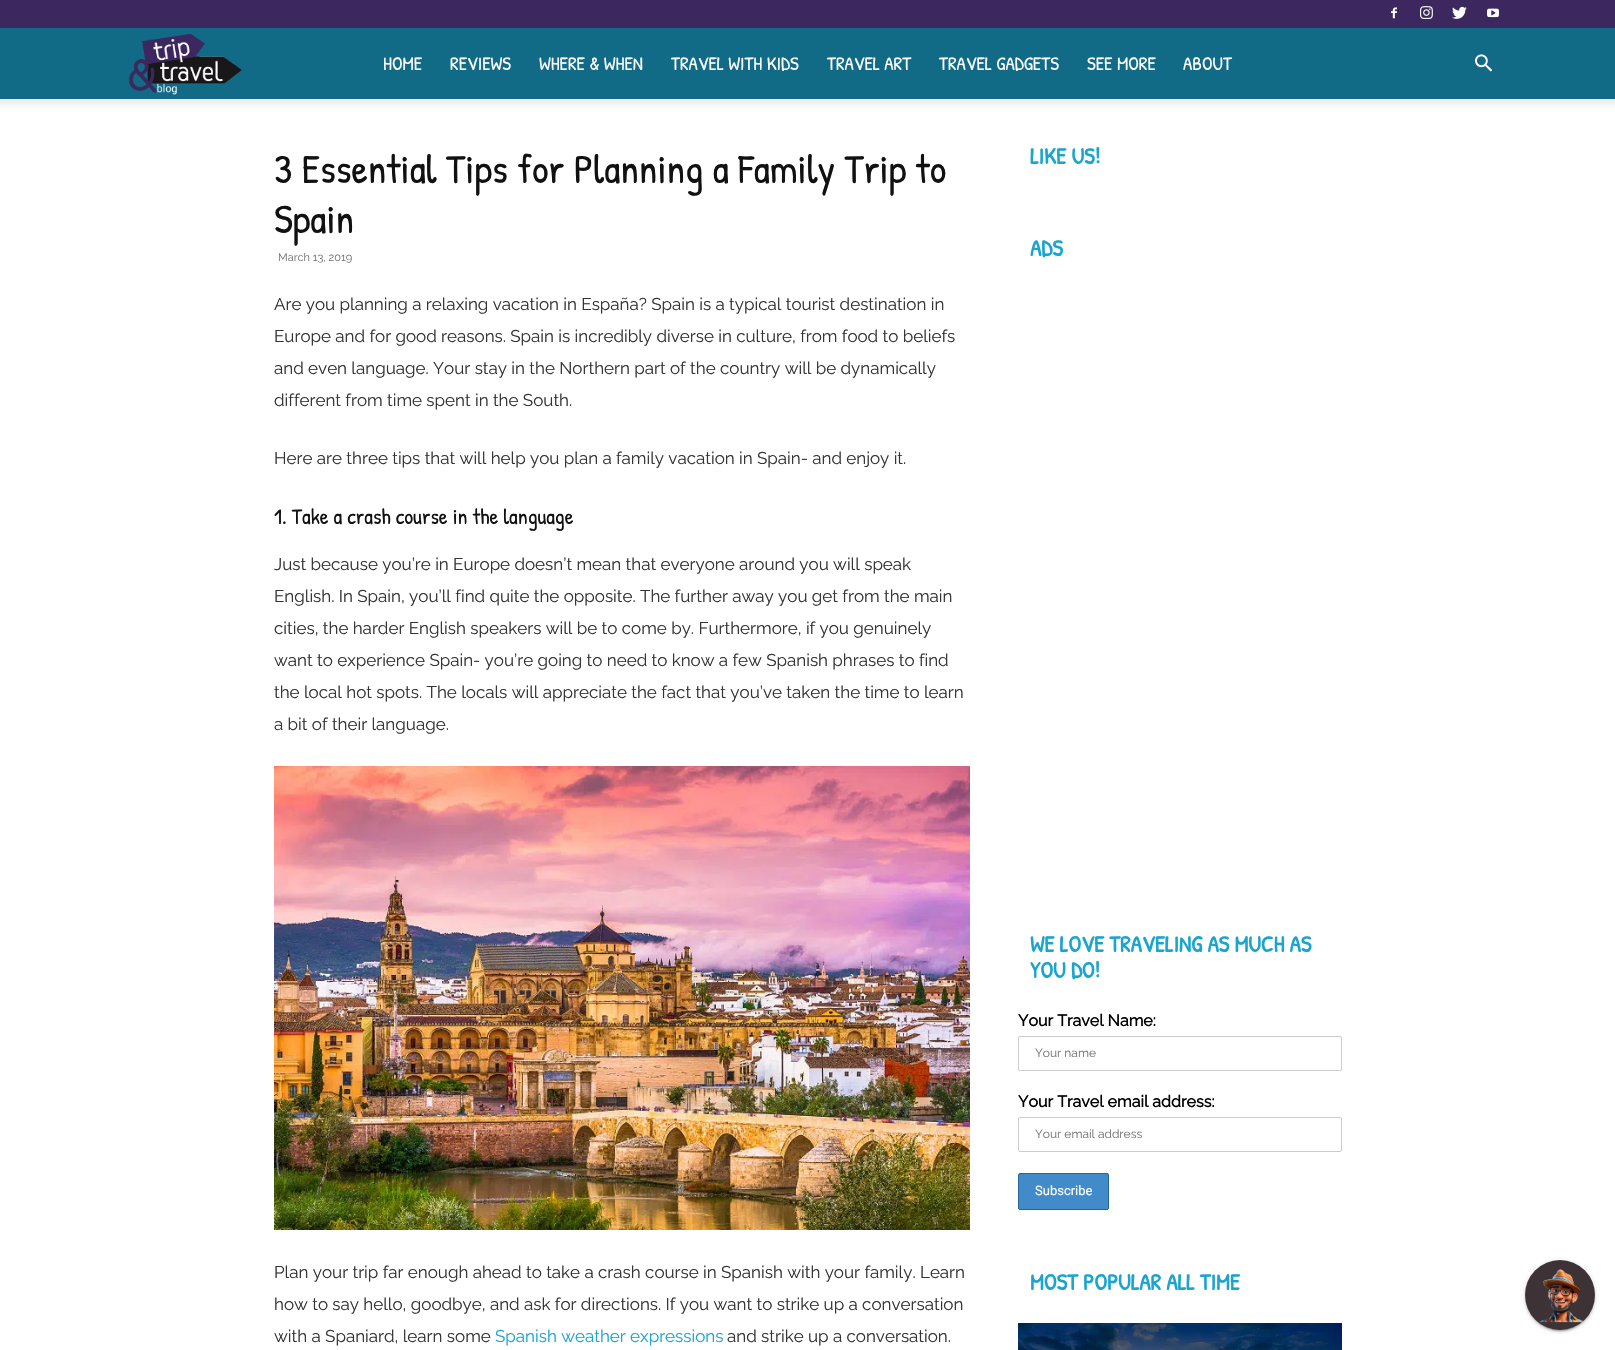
void draw(SkCanvas* canvas) {
    SkPaint paint;
    paint.setAntiAlias(true);
    auto face = [&](const char* family, int weight, float size, bool italic = false) {
        SkFontStyle style(weight, SkFontStyle::kNormal_Width,
            italic ? SkFontStyle::kItalic_Slant : SkFontStyle::kUpright_Slant);
        SkFont result(fontMgr->matchFamilyStyle(family, style), size);
        result.setSubpixel(true);
        return result;
    };
    auto write = [&](const char* s, float x, float y, const SkFont& font, SkColor color) {
        SkPaint ink(SkColor4f::FromColor(color));
        ink.setAntiAlias(true);
        canvas->drawString(s, x, y, font, ink);
    };
    auto block = [&](float x, float y, float w, float h, SkColor color) {
        SkPaint ink(SkColor4f::FromColor(color));
        ink.setAntiAlias(true);
        canvas->drawRect(SkRect::MakeXYWH(x, y, w, h), ink);
    };
    auto paste = [&](const char* path, float x, float y, float w, float h) {
        auto image = SkImages::DeferredFromEncodedData(SkData::MakeFromFileName(path));
        canvas->drawImageRect(image, SkRect::MakeXYWH(x, y, w, h), SkSamplingOptions());
    };
    canvas->clear(SK_ColorWHITE);
    block(0, 0, 1615, 28, SkColorSetRGB(60, 39, 94));
    paste("pic1.png", 1391, 7, 6, 12);
    paste("pic2.png", 1420, 6, 13, 13);
    paste("pic3.png", 1452, 6, 15, 13);
    paste("pic4.png", 1487, 8, 12, 10);
    block(0, 28, 1615, 71, SkColorSetRGB(17, 107, 135));
    paste("pic5.png", 128, 33, 114, 62);
    auto kFont1 = face("Patrick Hand", 400, 19);
    write("HOME", 383, 70, kFont1, SK_ColorWHITE);
    write("REVIEWS", 450, 70, kFont1, SK_ColorWHITE);
    write("WHERE & WHEN", 539, 70, kFont1, SK_ColorWHITE);
    write("TRAVEL WITH KIDS", 671, 70, kFont1, SK_ColorWHITE);
    write("TRAVEL ART", 827, 70, kFont1, SK_ColorWHITE);
    write("TRAVEL GADGETS", 939, 70, kFont1, SK_ColorWHITE);
    write("SEE MORE", 1087, 70, kFont1, SK_ColorWHITE);
    write("ABOUT", 1183, 70, kFont1, SK_ColorWHITE);
    paste("pic6.png", 1475, 54, 17, 18);
    paste("pic7.png", 0, 99, 1615, 9);
    auto kFont2 = face("Patrick Hand", 400, 41);
    write("3 Essential Tips for Planning a Family Trip to", 274, 183, kFont2, SkColorSetRGB(17, 17, 17));
    write("Spain", 274, 233, kFont2, SkColorSetRGB(17, 17, 17));
    auto kFont3 = face("Raleway", 100, 11);
    write("March 13, 2019", 278, 261, kFont3, SkColorSetRGB(118, 118, 118));
    auto kFont4 = face("Raleway", 100, 17);
    write("Are you planning a relaxing vacation in España? Spain is a typical tourist destination in", 274, 310, kFont4, SkColorSetRGB(51, 51, 51));
    write("Europe and for good reasons. Spain is incredibly diverse in culture, from food to beliefs", 274, 342, kFont4, SkColorSetRGB(51, 51, 51));
    write("and even language. Your stay in the Northern part of the country will be dynamically", 274, 374, kFont4, SkColorSetRGB(51, 51, 51));
    write("different from time spent in the South.", 274, 406, kFont4, SkColorSetRGB(51, 51, 51));
    write("Here are three tips that will help you plan a family vacation in Spain- and enjoy it.", 274, 464, kFont4, SkColorSetRGB(51, 51, 51));
    auto kFont5 = face("Patrick Hand", 400, 22);
    write("1. Take a crash course in the language", 274, 524, kFont5, SkColorSetRGB(17, 17, 17));
    write("Just because you’re in Europe doesn’t mean that everyone around you will speak", 274, 570, kFont4, SkColorSetRGB(51, 51, 51));
    write("English. In Spain, you’ll find quite the opposite. The further away you get from the main", 274, 602, kFont4, SkColorSetRGB(51, 51, 51));
    write("cities, the harder English speakers will be to come by. Furthermore, if you genuinely", 274, 634, kFont4, SkColorSetRGB(51, 51, 51));
    write("want to experience Spain- you’re going to need to know a few Spanish phrases to find", 274, 666, kFont4, SkColorSetRGB(51, 51, 51));
    write("the local hot spots. The locals will appreciate the fact that you’ve taken the time to learn", 274, 698, kFont4, SkColorSetRGB(51, 51, 51));
    write("a bit of their language.", 274, 730, kFont4, SkColorSetRGB(51, 51, 51));
    paste("pic8.png", 274, 766, 696, 464);
    write("Plan your trip far enough ahead to take a crash course in Spanish with your family. Learn", 274, 1278, kFont4, SkColorSetRGB(51, 51, 51));
    write("how to say hello, goodbye, and ask for directions. If you want to strike up a conversation", 274, 1310, kFont4, SkColorSetRGB(51, 51, 51));
    write("with a Spaniard, learn some", 274, 1342, kFont4, SkColorSetRGB(51, 51, 51));
    write("Spanish weather expressions", 495, 1342, kFont4, SkColorSetRGB(26, 164, 206));
    write("and strike up a conversation.", 727, 1342, kFont4, SkColorSetRGB(51, 51, 51));
    auto kFont6 = face("Patrick Hand", 700, 23);
    write("LIKE US!", 1030, 164, kFont6, SkColorSetRGB(26, 164, 206));
    write("ADS", 1030, 256, kFont6, SkColorSetRGB(26, 164, 206));
    write("WE LOVE TRAVELING AS MUCH AS", 1030, 952, kFont6, SkColorSetRGB(26, 164, 206));
    write("YOU DO!", 1030, 978, kFont6, SkColorSetRGB(26, 164, 206));
    auto kFont7 = face("Raleway", 700, 16);
    write("Your Travel Name:", 1018, 1026, kFont7, SK_ColorBLACK);
    paint.setStyle(SkPaint::kStroke_Style);
    paint.setStrokeWidth(1);
    paint.setColor(SkColorSetRGB(204, 204, 204));
    canvas->drawRoundRect(SkRect::MakeXYWH(1018.5f, 1036.5f, 323, 34), 1.5f, 1.5f, paint);
    auto kFont8 = face("Raleway", 100, 12);
    write("Your name", 1035, 1057, kFont8, SkColorSetRGB(118, 118, 118));
    write("Your Travel email address:", 1018, 1107, kFont7, SK_ColorBLACK);
    canvas->drawRoundRect(SkRect::MakeXYWH(1018.5f, 1117.5f, 323, 34), 1.5f, 1.5f, paint);
    write("Your email address", 1035, 1138, kFont8, SkColorSetRGB(118, 118, 118));
    paint.setStyle(SkPaint::kFill_Style);
    paint.setColor(SkColorSetRGB(66, 139, 202));
    canvas->drawRoundRect(SkRect::MakeXYWH(1018.5f, 1173.5f, 90, 36), 1.5f, 1.5f, paint);
    paint.setStyle(SkPaint::kStroke_Style);
    paint.setColor(SkColorSetRGB(42, 100, 150));
    canvas->drawRoundRect(SkRect::MakeXYWH(1018.5f, 1173.5f, 90, 36), 1.5f, 1.5f, paint);
    auto kFont9 = face("Roboto", 400, 13);
    write("Subscribe", 1035, 1195, kFont9, SK_ColorWHITE);
    write("MOST POPULAR ALL TIME", 1030, 1290, kFont6, SkColorSetRGB(26, 164, 206));
    paste("pic9.png", 1018, 1323, 324, 27);
    paint.setStyle(SkPaint::kFill_Style);
    paint.setColor(SkColorSetARGB(51, 0, 0, 0));
    paint.setMaskFilter(SkMaskFilter::MakeBlur(kNormal_SkBlurStyle, 0.5f));
    canvas->drawRoundRect(SkRect::MakeXYWH(1527, 1265, 66, 66), 33, 33, paint);
    paint.setMaskFilter(nullptr);
    paint.setColor(SkColorSetARGB(31, 0, 0, 0));
    paint.setMaskFilter(SkMaskFilter::MakeBlur(kNormal_SkBlurStyle, 2.5f));
    canvas->drawRoundRect(SkRect::MakeXYWH(1525, 1261, 70, 70), 35, 35, paint);
    paint.setMaskFilter(nullptr);
    paint.setColor(SkColorSetARGB(36, 0, 0, 0));
    paint.setMaskFilter(SkMaskFilter::MakeBlur(kNormal_SkBlurStyle, 1));
    canvas->drawRoundRect(SkRect::MakeXYWH(1525, 1262, 70, 70), 35, 35, paint);
    paint.setMaskFilter(nullptr);
    paint.setColor(SkColorSetRGB(61, 50, 53));
    canvas->drawCircle(1560, 1295, 35, paint);
    paste("pic10.png", 1540, 1269, 44, 54);
}
